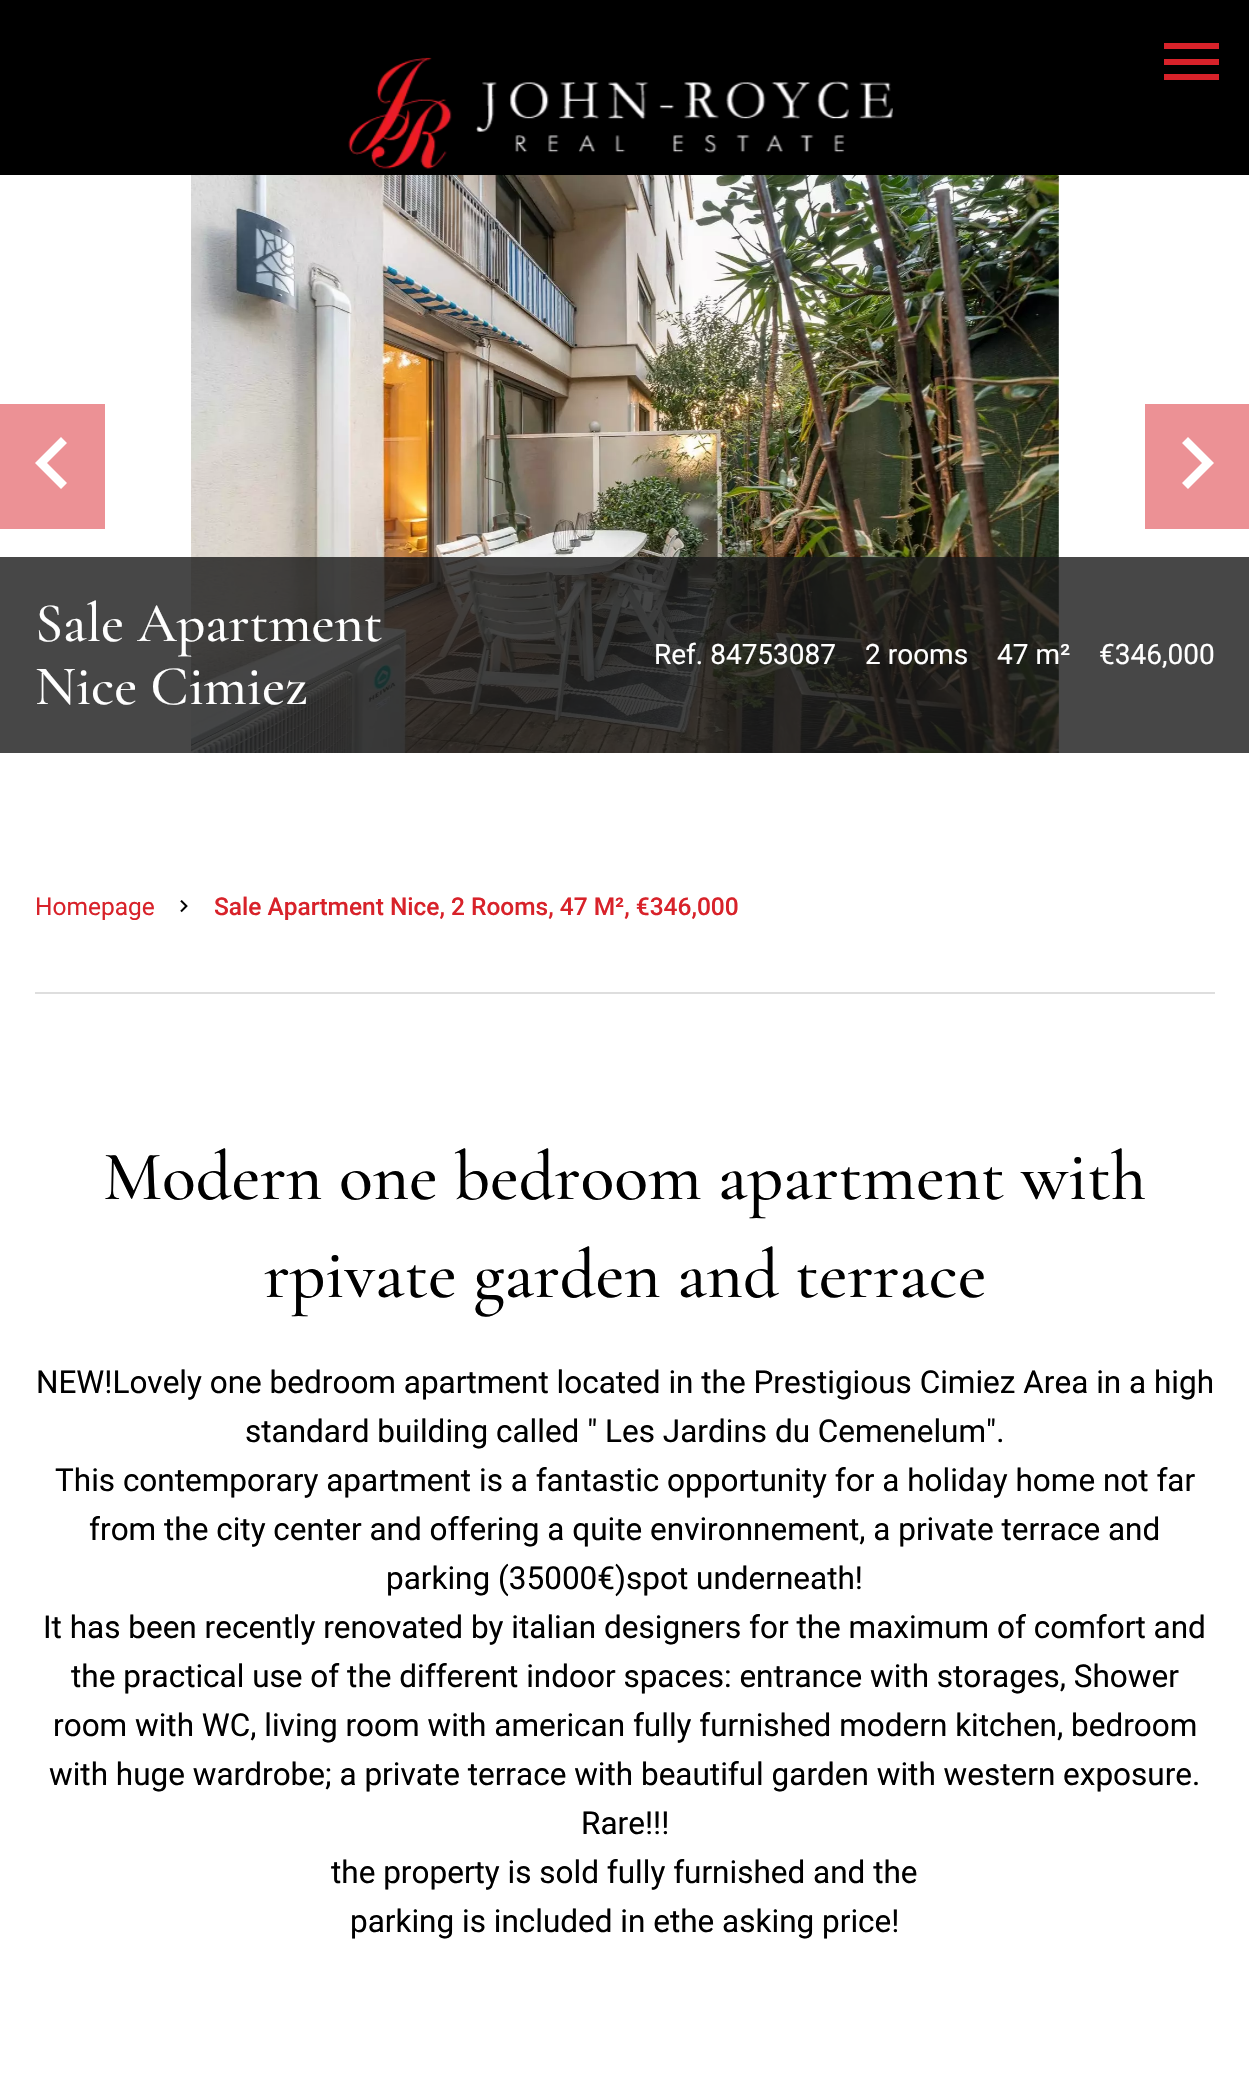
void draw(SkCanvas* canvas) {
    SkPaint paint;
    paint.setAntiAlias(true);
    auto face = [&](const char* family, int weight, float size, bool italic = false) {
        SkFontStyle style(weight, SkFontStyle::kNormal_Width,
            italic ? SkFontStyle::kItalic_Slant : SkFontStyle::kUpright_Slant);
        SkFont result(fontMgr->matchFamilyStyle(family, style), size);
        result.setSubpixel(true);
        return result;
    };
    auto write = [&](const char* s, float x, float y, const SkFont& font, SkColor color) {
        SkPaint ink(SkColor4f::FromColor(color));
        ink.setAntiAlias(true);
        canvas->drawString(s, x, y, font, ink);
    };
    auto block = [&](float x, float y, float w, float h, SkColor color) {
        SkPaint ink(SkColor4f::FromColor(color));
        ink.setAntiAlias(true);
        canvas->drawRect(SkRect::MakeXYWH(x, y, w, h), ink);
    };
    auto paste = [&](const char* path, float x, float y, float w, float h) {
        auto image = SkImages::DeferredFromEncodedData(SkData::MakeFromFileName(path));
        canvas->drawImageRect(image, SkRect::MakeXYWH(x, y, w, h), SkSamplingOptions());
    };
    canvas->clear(SK_ColorWHITE);
    block(0, 0, 1249, 175, SK_ColorBLACK);
    paste("pic1.png", 348, 57, 545, 112);
    paint.setColor(SkColorSetRGB(216, 34, 42));
    canvas->drawPath(SkPathBuilder().moveTo(1164, 43).lineTo(1219, 43).lineTo(1219, 49).lineTo(1164, 49).close().moveTo(1164, 59).lineTo(1219, 59).lineTo(1219, 65).lineTo(1164, 65).close().moveTo(1164, 74).lineTo(1219, 74).lineTo(1219, 80).lineTo(1164, 80).close().detach(), paint);
    paste("pic2.png", 191, 175, 868, 578);
    block(0, 404, 105, 125, SkColorSetRGB(236, 145, 149));
    paint.setColor(SK_ColorWHITE);
    canvas->drawPath(SkPathBuilder().moveTo(67, 483).lineTo(47, 463).lineTo(67, 443).lineTo(61, 437).lineTo(35, 463).lineTo(61, 489).close().detach(), paint);
    block(1145, 404, 104, 125, SkColorSetRGB(236, 145, 149));
    canvas->drawPath(SkPathBuilder().moveTo(1182, 483).lineTo(1202, 463).lineTo(1182, 443).lineTo(1188, 437).lineTo(1214, 463).lineTo(1188, 489).close().detach(), paint);
    block(0, 557, 1249, 196, SkColorSetARGB(204, 25, 25, 25));
    auto kFont1 = face("Cormorant Garamond", 500, 56);
    write("Sale Apartment", 35, 641, kFont1, SK_ColorWHITE);
    write("Nice Cimiez", 35, 704, kFont1, SK_ColorWHITE);
    auto kFont2 = face("Roboto", 400, 28);
    write("Ref. 84753087", 654, 664, kFont2, SK_ColorWHITE);
    write("2 rooms", 865, 664, kFont2, SK_ColorWHITE);
    write("47 m²", 997, 664, kFont2, SK_ColorWHITE);
    write("€346,000", 1099, 664, kFont2, SK_ColorWHITE);
    block(35, 992, 1180, 2, SkColorSetRGB(222, 222, 222));
    auto kFont3 = face("Roboto", 400, 24.5f);
    write("Homepage", 35, 915, kFont3, SkColorSetRGB(216, 34, 42));
    paste("pic3.png", 180, 900, 8, 13);
    auto kFont4 = face("Roboto", 500, 24.5f);
    write("Sale Apartment Nice, 2 Rooms, 47 M², €346,000", 214, 915, kFont4, SkColorSetRGB(216, 34, 42));
    auto kFont5 = face("Cormorant Garamond", 500, 70);
    write("Modern one bedroom apartment with", 103, 1199, kFont5, SK_ColorBLACK);
    write("rpivate garden and terrace", 264, 1297, kFont5, SK_ColorBLACK);
    auto kFont6 = face("Roboto", 400, 31.5f);
    write("NEW!Lovely one bedroom apartment located in the Prestigious Cimiez Area in a high", 36, 1393, kFont6, SK_ColorBLACK);
    write("standard building called \" Les Jardins du Cemenelum\".", 245, 1442, kFont6, SK_ColorBLACK);
    write("This contemporary apartment is a fantastic opportunity for a holiday home not far", 55, 1491, kFont6, SK_ColorBLACK);
    write("from the city center and offering a quite environnement, a private terrace and", 89, 1540, kFont6, SK_ColorBLACK);
    write("parking (35000€)spot underneath!", 386, 1589, kFont6, SK_ColorBLACK);
    write("It has been recently renovated by italian designers for the maximum of comfort and", 43, 1638, kFont6, SK_ColorBLACK);
    write("the practical use of the different indoor spaces: entrance with storages, Shower", 71, 1687, kFont6, SK_ColorBLACK);
    write("room with WC, living room with american fully furnished modern kitchen, bedroom", 53, 1736, kFont6, SK_ColorBLACK);
    write("with huge wardrobe; a private terrace with beautiful garden with western exposure.", 49, 1785, kFont6, SK_ColorBLACK);
    write("Rare!!!", 581, 1834, kFont6, SK_ColorBLACK);
    write("the property is sold fully furnished and the", 331, 1883, kFont6, SK_ColorBLACK);
    write("parking is included in ethe asking price!", 350, 1932, kFont6, SK_ColorBLACK);
}
